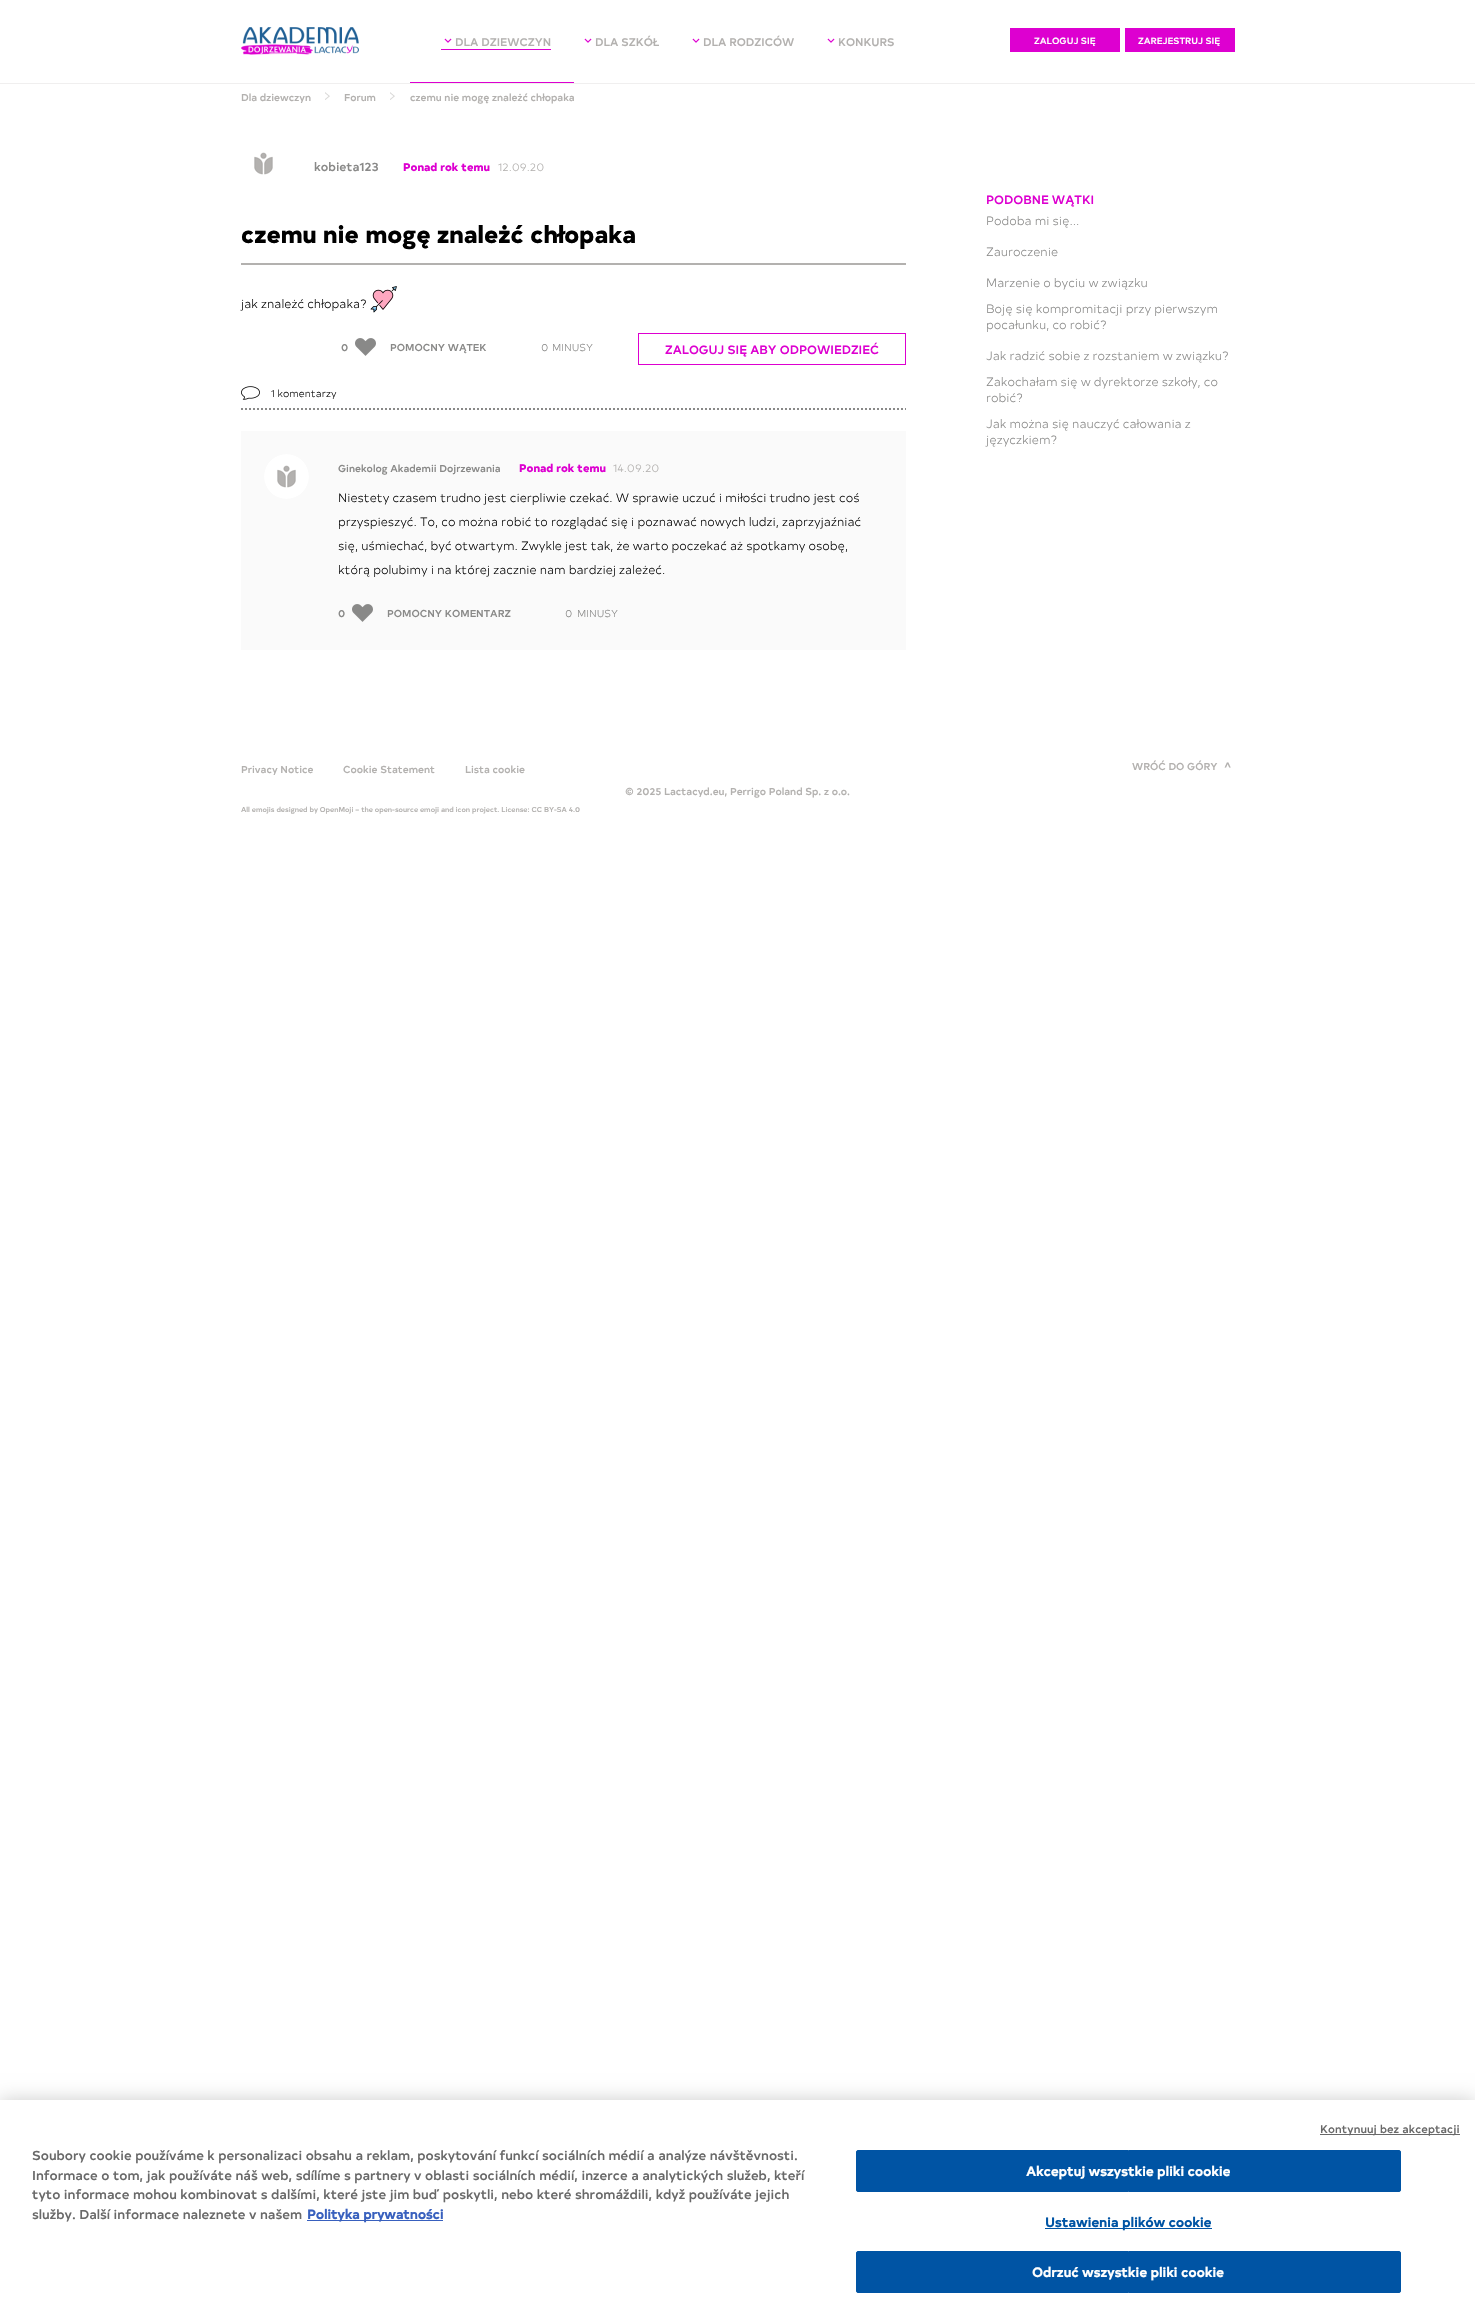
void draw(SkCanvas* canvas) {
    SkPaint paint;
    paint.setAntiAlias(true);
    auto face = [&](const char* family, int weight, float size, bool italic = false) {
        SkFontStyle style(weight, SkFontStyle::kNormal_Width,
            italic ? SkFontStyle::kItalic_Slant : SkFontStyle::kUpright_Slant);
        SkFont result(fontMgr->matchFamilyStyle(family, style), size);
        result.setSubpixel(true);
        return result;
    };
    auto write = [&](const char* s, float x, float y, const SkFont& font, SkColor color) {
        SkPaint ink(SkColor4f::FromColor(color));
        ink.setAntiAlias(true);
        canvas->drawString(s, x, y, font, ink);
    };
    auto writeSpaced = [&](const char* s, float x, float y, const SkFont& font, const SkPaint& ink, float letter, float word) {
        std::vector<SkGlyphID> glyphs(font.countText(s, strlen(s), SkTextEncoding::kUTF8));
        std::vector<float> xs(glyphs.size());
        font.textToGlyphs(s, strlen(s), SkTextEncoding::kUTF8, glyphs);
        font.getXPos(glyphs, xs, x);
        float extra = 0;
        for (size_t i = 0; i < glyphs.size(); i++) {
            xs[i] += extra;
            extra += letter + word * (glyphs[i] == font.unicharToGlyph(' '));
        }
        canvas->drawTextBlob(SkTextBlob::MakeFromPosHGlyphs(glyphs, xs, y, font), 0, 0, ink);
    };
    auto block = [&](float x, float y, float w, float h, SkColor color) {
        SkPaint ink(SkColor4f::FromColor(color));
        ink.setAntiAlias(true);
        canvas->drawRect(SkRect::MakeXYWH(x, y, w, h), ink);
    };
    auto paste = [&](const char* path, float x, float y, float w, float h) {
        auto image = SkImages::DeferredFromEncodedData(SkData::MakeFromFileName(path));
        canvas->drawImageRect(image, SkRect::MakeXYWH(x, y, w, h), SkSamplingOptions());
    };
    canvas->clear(SK_ColorWHITE);
    paste("pic1.png", 241, 27, 118, 28);
    paste("pic2.png", 444, 38, 8, 5);
    auto kFont1 = face("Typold", 500, 11);
    write("DLA DZIEWCZYN", 455, 46, kFont1, SkColorSetRGB(179, 177, 175));
    block(441, 49, 110, 1, SkColorSetRGB(221, 0, 208));
    paste("pic2.png", 584, 38, 8, 5);
    write("DLA SZKÓŁ", 595, 46, kFont1, SkColorSetRGB(179, 177, 175));
    paste("pic2.png", 692, 38, 8, 5);
    write("DLA RODZICÓW", 703, 46, kFont1, SkColorSetRGB(179, 177, 175));
    paste("pic2.png", 827, 38, 8, 5);
    write("KONKURS", 838, 46, kFont1, SkColorSetRGB(179, 177, 175));
    block(1010, 28, 110, 24, SkColorSetRGB(221, 0, 208));
    auto kFont2 = face("Typold", 500, 9);
    write("ZALOGUJ SIĘ", 1034, 44, kFont2, SK_ColorWHITE);
    block(1125, 28, 110, 24, SkColorSetRGB(221, 0, 208));
    write("ZAREJESTRUJ SIĘ", 1138, 44, kFont2, SK_ColorWHITE);
    block(0, 83, 1475, 1, SkColorSetRGB(240, 239, 239));
    auto kFont3 = face("Typold", 500, 10);
    write("Dla dziewczyn", 241, 101, kFont3, SkColorSetRGB(179, 177, 175));
    paste("pic3.png", 325, 92, 5, 8);
    write("Forum", 344, 101, kFont3, SkColorSetRGB(179, 177, 175));
    paste("pic3.png", 390, 92, 5, 8);
    block(410, 82, 164, 1, SkColorSetRGB(221, 0, 208));
    write("czemu nie mogę znależć chłopaka", 410, 101, kFont3, SkColorSetRGB(179, 177, 175));
    paste("pic4.png", 254, 152, 19, 23);
    auto kFont4 = face("Typold", 500, 12);
    write("kobieta123", 314, 171, kFont4, SkColorSetRGB(137, 137, 136));
    auto kFont5 = face("Typold", 800, 11);
    write("Ponad rok temu", 403, 171, kFont5, SkColorSetRGB(221, 0, 208));
    auto kFont6 = face("Typold", 300, 11);
    write("12.09.20", 498, 171, kFont6, SkColorSetRGB(179, 177, 175));
    block(241, 263, 665, 2, SkColorSetRGB(179, 177, 175));
    auto kFont7 = face("Typold", 800, 24);
    write("czemu nie mogę znależć chłopaka", 241, 243, kFont7, SK_ColorBLACK);
    auto kFont8 = face("Typold", 300, 12);
    write("jak znależć chłopaka?", 241, 308, kFont8, SkColorSetRGB(8, 8, 8));
    paste("pic5.png", 370, 286, 27, 27);
    paste("pic6.png", 355, 338, 21, 18);
    write("0", 341, 351, kFont3, SkColorSetRGB(137, 137, 136));
    write("POMOCNY WĄTEK", 390, 351, kFont3, SkColorSetRGB(137, 137, 136));
    auto kFont9 = face("Typold", 300, 10);
    write("0", 541, 351, kFont9, SkColorSetRGB(137, 137, 136));
    write("MINUSY", 552, 351, kFont9, SkColorSetRGB(137, 137, 136));
    paint.setStyle(SkPaint::kStroke_Style);
    paint.setStrokeWidth(1);
    paint.setColor(SkColorSetRGB(221, 0, 208));
    canvas->drawRect(SkRect::MakeXYWH(638.5f, 333.5f, 267, 31), paint);
    write("ZALOGUJ SIĘ ABY ODPOWIEDZIEĆ", 665, 354, kFont4, SkColorSetRGB(221, 0, 208));
    paste("pic7.png", 241, 386, 19, 14);
    paint.setStrokeWidth(2);
    paint.setColor(SkColorSetRGB(137, 137, 136));
    paint.setPathEffect(SkDashPathEffect::Make({{2, 2}}, 0));
    canvas->drawPath(SkPathBuilder().moveTo(241, 409).lineTo(906, 409).detach(), paint);
    paint.setPathEffect(nullptr);
    write("1 komentarzy", 271, 397, kFont9, SkColorSetRGB(8, 8, 8));
    block(241, 431, 665, 219, SkColorSetRGB(250, 250, 250));
    paste("pic8.png", 264, 454, 45, 45);
    write("Ginekolog Akademii Dojrzewania", 338, 472, kFont3, SkColorSetRGB(137, 137, 136));
    write("Ponad rok temu", 519, 472, kFont5, SkColorSetRGB(221, 0, 208));
    write("14.09.20", 613, 472, kFont6, SkColorSetRGB(179, 177, 175));
    write("Niestety czasem trudno jest cierpliwie czekać. W sprawie uczuć i miłości trudno jest coś", 338, 502, kFont8, SkColorSetRGB(8, 8, 8));
    write("przyspieszyć. To, co można robić to rozglądać się i poznawać nowych ludzi, zaprzyjaźniać", 338, 526, kFont8, SkColorSetRGB(8, 8, 8));
    write("się, uśmiechać, być otwartym. Zwykle jest tak, że warto poczekać aż spotkamy osobę,", 338, 550, kFont8, SkColorSetRGB(8, 8, 8));
    write("którą polubimy i na której zacznie nam bardziej zależeć.", 338, 574, kFont8, SkColorSetRGB(8, 8, 8));
    paste("pic9.png", 352, 604, 21, 18);
    write("0", 338, 617, kFont3, SkColorSetRGB(137, 137, 136));
    write("POMOCNY KOMENTARZ", 387, 617, kFont3, SkColorSetRGB(137, 137, 136));
    write("0", 565, 617, kFont9, SkColorSetRGB(137, 137, 136));
    write("MINUSY", 577, 617, kFont9, SkColorSetRGB(137, 137, 136));
    write("PODOBNE WĄTKI", 986, 204, kFont4, SkColorSetRGB(221, 0, 208));
    write("Podoba mi się...", 986, 225, kFont8, SkColorSetRGB(137, 137, 136));
    write("Zauroczenie", 986, 256, kFont8, SkColorSetRGB(137, 137, 136));
    write("Marzenie o byciu w związku", 986, 287, kFont8, SkColorSetRGB(137, 137, 136));
    write("Boję się kompromitacji przy pierwszym", 986, 313, kFont8, SkColorSetRGB(137, 137, 136));
    write("pocałunku, co robić?", 986, 329, kFont8, SkColorSetRGB(137, 137, 136));
    write("Jak radzić sobie z rozstaniem w związku?", 986, 360, kFont8, SkColorSetRGB(137, 137, 136));
    write("Zakochałam się w dyrektorze szkoły, co", 986, 386, kFont8, SkColorSetRGB(137, 137, 136));
    write("robić?", 986, 402, kFont8, SkColorSetRGB(137, 137, 136));
    write("Jak można się nauczyć całowania z", 986, 428, kFont8, SkColorSetRGB(137, 137, 136));
    write("języczkiem?", 986, 444, kFont8, SkColorSetRGB(137, 137, 136));
    write("Privacy Notice", 241, 773, kFont3, SkColorSetRGB(179, 177, 175));
    write("Cookie Statement", 343, 773, kFont3, SkColorSetRGB(179, 177, 175));
    write("Lista cookie", 465, 773, kFont3, SkColorSetRGB(179, 177, 175));
    write("WRÓĆ DO GÓRY", 1132, 770, kFont3, SkColorSetRGB(179, 177, 175));
    canvas->save();
    canvas->rotate(-90, 1231, 768);
    write(">", 1231, 768, kFont4, SkColorSetRGB(179, 177, 175));
    canvas->restore();
    write("© 2025 Lactacyd.eu, Perrigo Poland Sp. z o.o.", 625, 795, kFont3, SkColorSetRGB(179, 177, 175));
    auto kFont10 = face("Typold", 500, 7);
    write("All emojis designed by OpenMoji – the open-source emoji and icon project. License: CC BY-SA 4.0", 241, 812, kFont10, SkColorSetRGB(179, 177, 175));
    paint.setStyle(SkPaint::kFill_Style);
    paint.setColor(SkColorSetARGB(51, 0, 0, 0));
    paint.setMaskFilter(SkMaskFilter::MakeBlur(kNormal_SkBlurStyle, 9));
    canvas->drawRect(SkRect::MakeXYWH(0, 2100, 1475, 213), paint);
    paint.setMaskFilter(nullptr);
    block(0, 2100, 1475, 213, SK_ColorWHITE);
    block(1320, 2134, 140, 1, SkColorSetRGB(105, 105, 105));
    paint.setColor(SkColorSetRGB(105, 105, 105));
    writeSpaced("Kontynuuj bez akceptacji", 1320, 2133, kFont1, paint, 0.1f, 0);
    auto kFont11 = face("Typold", 500, 13);
    write("Soubory cookie používáme k personalizaci obsahu a reklam, poskytování funkcí sociálních médií a analýze návštěvnosti.", 32, 2160, kFont11, SkColorSetRGB(105, 105, 105));
    write("Informace o tom, jak používáte náš web, sdílíme s partnery v oblasti sociálních médií, inzerce a analytických služeb, kteří", 32, 2180, kFont11, SkColorSetRGB(105, 105, 105));
    write("tyto informace mohou kombinovat s dalšími, které jste jim buď poskytli, nebo které shromáždili, když používáte jejich", 32, 2199, kFont11, SkColorSetRGB(105, 105, 105));
    write("služby. Další informace naleznete v našem", 32, 2219, kFont11, SkColorSetRGB(105, 105, 105));
    block(307, 2220, 136, 1, SkColorSetRGB(56, 96, 190));
    auto kFont12 = face("Typold", 700, 13);
    write("Polityka prywatności", 307, 2219, kFont12, SkColorSetRGB(56, 96, 190));
    paint.setColor(SkColorSetRGB(0, 84, 164));
    canvas->drawRoundRect(SkRect::MakeXYWH(856.5f, 2150.5f, 544, 41), 1.5f, 1.5f, paint);
    paint.setStyle(SkPaint::kStroke_Style);
    paint.setStrokeWidth(1);
    canvas->drawRoundRect(SkRect::MakeXYWH(856.5f, 2150.5f, 544, 41), 1.5f, 1.5f, paint);
    paint.setStyle(SkPaint::kFill_Style);
    paint.setColor(SK_ColorWHITE);
    writeSpaced("Akceptuj wszystkie pliki cookie", 1026, 2176, kFont12, paint, 0.1f, 0);
    block(1045, 2228, 167, 1, SkColorSetRGB(0, 84, 164));
    paint.setColor(SkColorSetRGB(0, 84, 164));
    writeSpaced("Ustawienia plików cookie", 1045, 2227, kFont12, paint, 0.1f, 0);
    canvas->drawRoundRect(SkRect::MakeXYWH(856.5f, 2251.5f, 544, 41), 1.5f, 1.5f, paint);
    paint.setStyle(SkPaint::kStroke_Style);
    canvas->drawRoundRect(SkRect::MakeXYWH(856.5f, 2251.5f, 544, 41), 1.5f, 1.5f, paint);
    paint.setStyle(SkPaint::kFill_Style);
    paint.setColor(SK_ColorWHITE);
    writeSpaced("Odrzuć wszystkie pliki cookie", 1032, 2277, kFont12, paint, 0.1f, 0);
}
